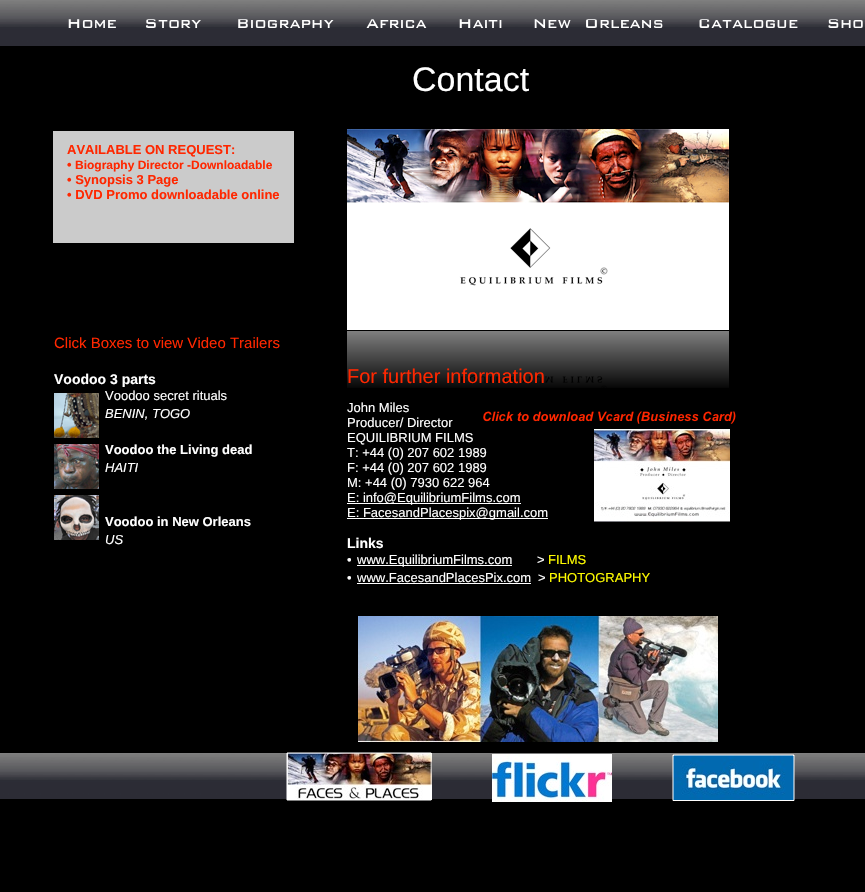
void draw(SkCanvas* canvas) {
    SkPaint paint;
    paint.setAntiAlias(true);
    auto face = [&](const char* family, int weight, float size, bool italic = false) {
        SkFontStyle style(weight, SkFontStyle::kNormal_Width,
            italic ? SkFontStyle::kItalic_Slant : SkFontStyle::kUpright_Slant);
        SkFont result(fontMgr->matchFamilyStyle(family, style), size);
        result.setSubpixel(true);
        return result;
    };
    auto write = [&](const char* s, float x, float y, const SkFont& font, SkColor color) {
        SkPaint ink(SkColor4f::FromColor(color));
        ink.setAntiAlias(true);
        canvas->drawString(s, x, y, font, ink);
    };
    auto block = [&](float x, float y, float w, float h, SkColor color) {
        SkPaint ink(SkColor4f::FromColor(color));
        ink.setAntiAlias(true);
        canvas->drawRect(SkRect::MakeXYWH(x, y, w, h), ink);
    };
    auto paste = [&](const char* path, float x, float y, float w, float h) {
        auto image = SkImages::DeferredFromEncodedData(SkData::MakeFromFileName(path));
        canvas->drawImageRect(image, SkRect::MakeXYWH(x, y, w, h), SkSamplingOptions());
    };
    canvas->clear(SK_ColorBLACK);
    paste("pic1.png", 0, 0, 865, 46);
    paste("pic2.png", 68, 19, 48, 9);
    paste("pic3.png", 146, 19, 55, 9);
    paste("pic4.png", 238, 19, 96, 9);
    paste("pic5.png", 366, 19, 61, 9);
    paste("pic6.png", 459, 19, 43, 9);
    paste("pic7.png", 534, 19, 129, 9);
    paste("pic8.png", 699, 19, 99, 9);
    paste("pic9.png", 828, 19, 35, 9);
    auto kFont1 = face("Liberation Sans", 400, 34);
    write("Contact", 412, 91, kFont1, SK_ColorWHITE);
    block(53, 131, 241, 112, SkColorSetRGB(203, 203, 203));
    paste("pic10.png", 347, 129, 382, 201);
    paste("pic11.png", 347, 331, 382, 57);
    auto kFont2 = face("Liberation Sans", 700, 13);
    write("AVAILABLE ON REQUEST:", 67, 154, kFont2, SkColorSetRGB(255, 39, 0));
    write("•", 67, 169, kFont2, SkColorSetRGB(255, 39, 0));
    auto kFont3 = face("Liberation Sans", 700, 12);
    write("Biography Director -Downloadable", 75, 169, kFont3, SkColorSetRGB(255, 39, 0));
    write("• Synopsis 3 Page", 67, 184, kFont2, SkColorSetRGB(255, 39, 0));
    write("• DVD Promo downloadable online", 67, 199, kFont2, SkColorSetRGB(255, 39, 0));
    auto kFont4 = face("Liberation Sans", 400, 15);
    write("Click Boxes to view Video Trailers", 54, 348, kFont4, SkColorSetRGB(255, 39, 0));
    auto kFont5 = face("Liberation Sans", 700, 14);
    write("Voodoo 3 parts", 54, 384, kFont5, SK_ColorWHITE);
    paste("pic12.png", 54, 393, 45, 45);
    auto kFont6 = face("Liberation Sans", 400, 13);
    write("Voodoo secret rituals", 105, 400, kFont6, SK_ColorWHITE);
    auto kFont7 = face("Liberation Sans", 400, 13, true);
    write("BENIN, TOGO", 105, 418, kFont7, SK_ColorWHITE);
    paste("pic13.png", 54, 444, 45, 45);
    write("Voodoo the Living dead", 105, 454, kFont2, SK_ColorWHITE);
    write("HAITI", 105, 472, kFont7, SK_ColorWHITE);
    paste("pic14.png", 54, 495, 45, 45);
    write("Voodoo in New Orleans", 105, 526, kFont2, SK_ColorWHITE);
    write("US", 105, 544, kFont7, SK_ColorWHITE);
    auto kFont8 = face("Liberation Sans", 400, 20);
    write("For further information", 347, 383, kFont8, SkColorSetRGB(255, 39, 0));
    write("John Miles", 347, 412, kFont6, SK_ColorWHITE);
    write("Producer/ Director", 347, 427, kFont6, SK_ColorWHITE);
    write("EQUILIBRIUM FILMS", 347, 442, kFont6, SK_ColorWHITE);
    write("T: +44 (0) 207 602 1989", 347, 457, kFont6, SK_ColorWHITE);
    write("F: +44 (0) 207 602 1989", 347, 472, kFont6, SK_ColorWHITE);
    write("M: +44 (0) 7930 622 964", 347, 487, kFont6, SK_ColorWHITE);
    block(347, 503, 174, 1, SK_ColorWHITE);
    write("E: info@EquilibriumFilms.com", 347, 502, kFont6, SK_ColorWHITE);
    block(347, 518, 201, 1, SK_ColorWHITE);
    write("E: FacesandPlacespix@gmail.com", 347, 517, kFont6, SK_ColorWHITE);
    write("Links", 347, 548, kFont5, SK_ColorWHITE);
    write("•", 347, 564, kFont6, SK_ColorWHITE);
    block(357, 565, 155, 1, SK_ColorWHITE);
    write("www.EquilibriumFilms.com", 357, 564, kFont6, SK_ColorWHITE);
    write(">", 537, 564, kFont6, SK_ColorWHITE);
    write("FILMS", 548, 564, kFont6, SkColorSetRGB(255, 252, 0));
    write("•", 347, 582, kFont6, SK_ColorWHITE);
    write("www.FacesandPlacesPix.com", 357, 582, kFont6, SK_ColorWHITE);
    block(357, 583, 174, 1, SK_ColorWHITE);
    write(">", 538, 582, kFont6, SK_ColorWHITE);
    write("PHOTOGRAPHY", 549, 582, kFont6, SkColorSetRGB(255, 252, 0));
    paste("pic15.png", 483, 411, 253, 13);
    paste("pic16.png", 594, 429, 136, 93);
    paste("pic17.png", 358, 616, 360, 126);
    paste("pic24.png", 0, 753, 865, 46);
    paste("pic20.png", 287, 753, 145, 47);
    paste("pic18.png", 286, 752, 2, 2);
    block(288, 752, 142, 2, SkColorSetARGB(128, 255, 255, 255));
    paste("pic19.png", 430, 752, 2, 2);
    block(286, 754, 2, 45, SkColorSetARGB(128, 255, 255, 255));
    paste("pic21.png", 430, 754, 2, 32);
    paste("pic22.png", 286, 799, 2, 2);
    block(288, 800, 142, 1, SkColorSetRGB(128, 128, 128));
    paste("pic23.png", 430, 800, 2, 1);
    paste("pic25.png", 492, 754, 120, 48);
    paste("pic28.png", 673, 755, 121, 45);
    paste("pic26.png", 672, 754, 2, 2);
    block(674, 754, 119, 2, SkColorSetARGB(128, 255, 255, 255));
    paste("pic27.png", 793, 754, 2, 2);
    block(672, 756, 2, 43, SkColorSetARGB(128, 255, 255, 255));
    block(793, 756, 2, 43, SkColorSetARGB(128, 255, 255, 255));
    paste("pic29.png", 672, 799, 2, 2);
    block(674, 800, 119, 1, SK_ColorWHITE);
    paste("pic30.png", 793, 799, 2, 2);
}
